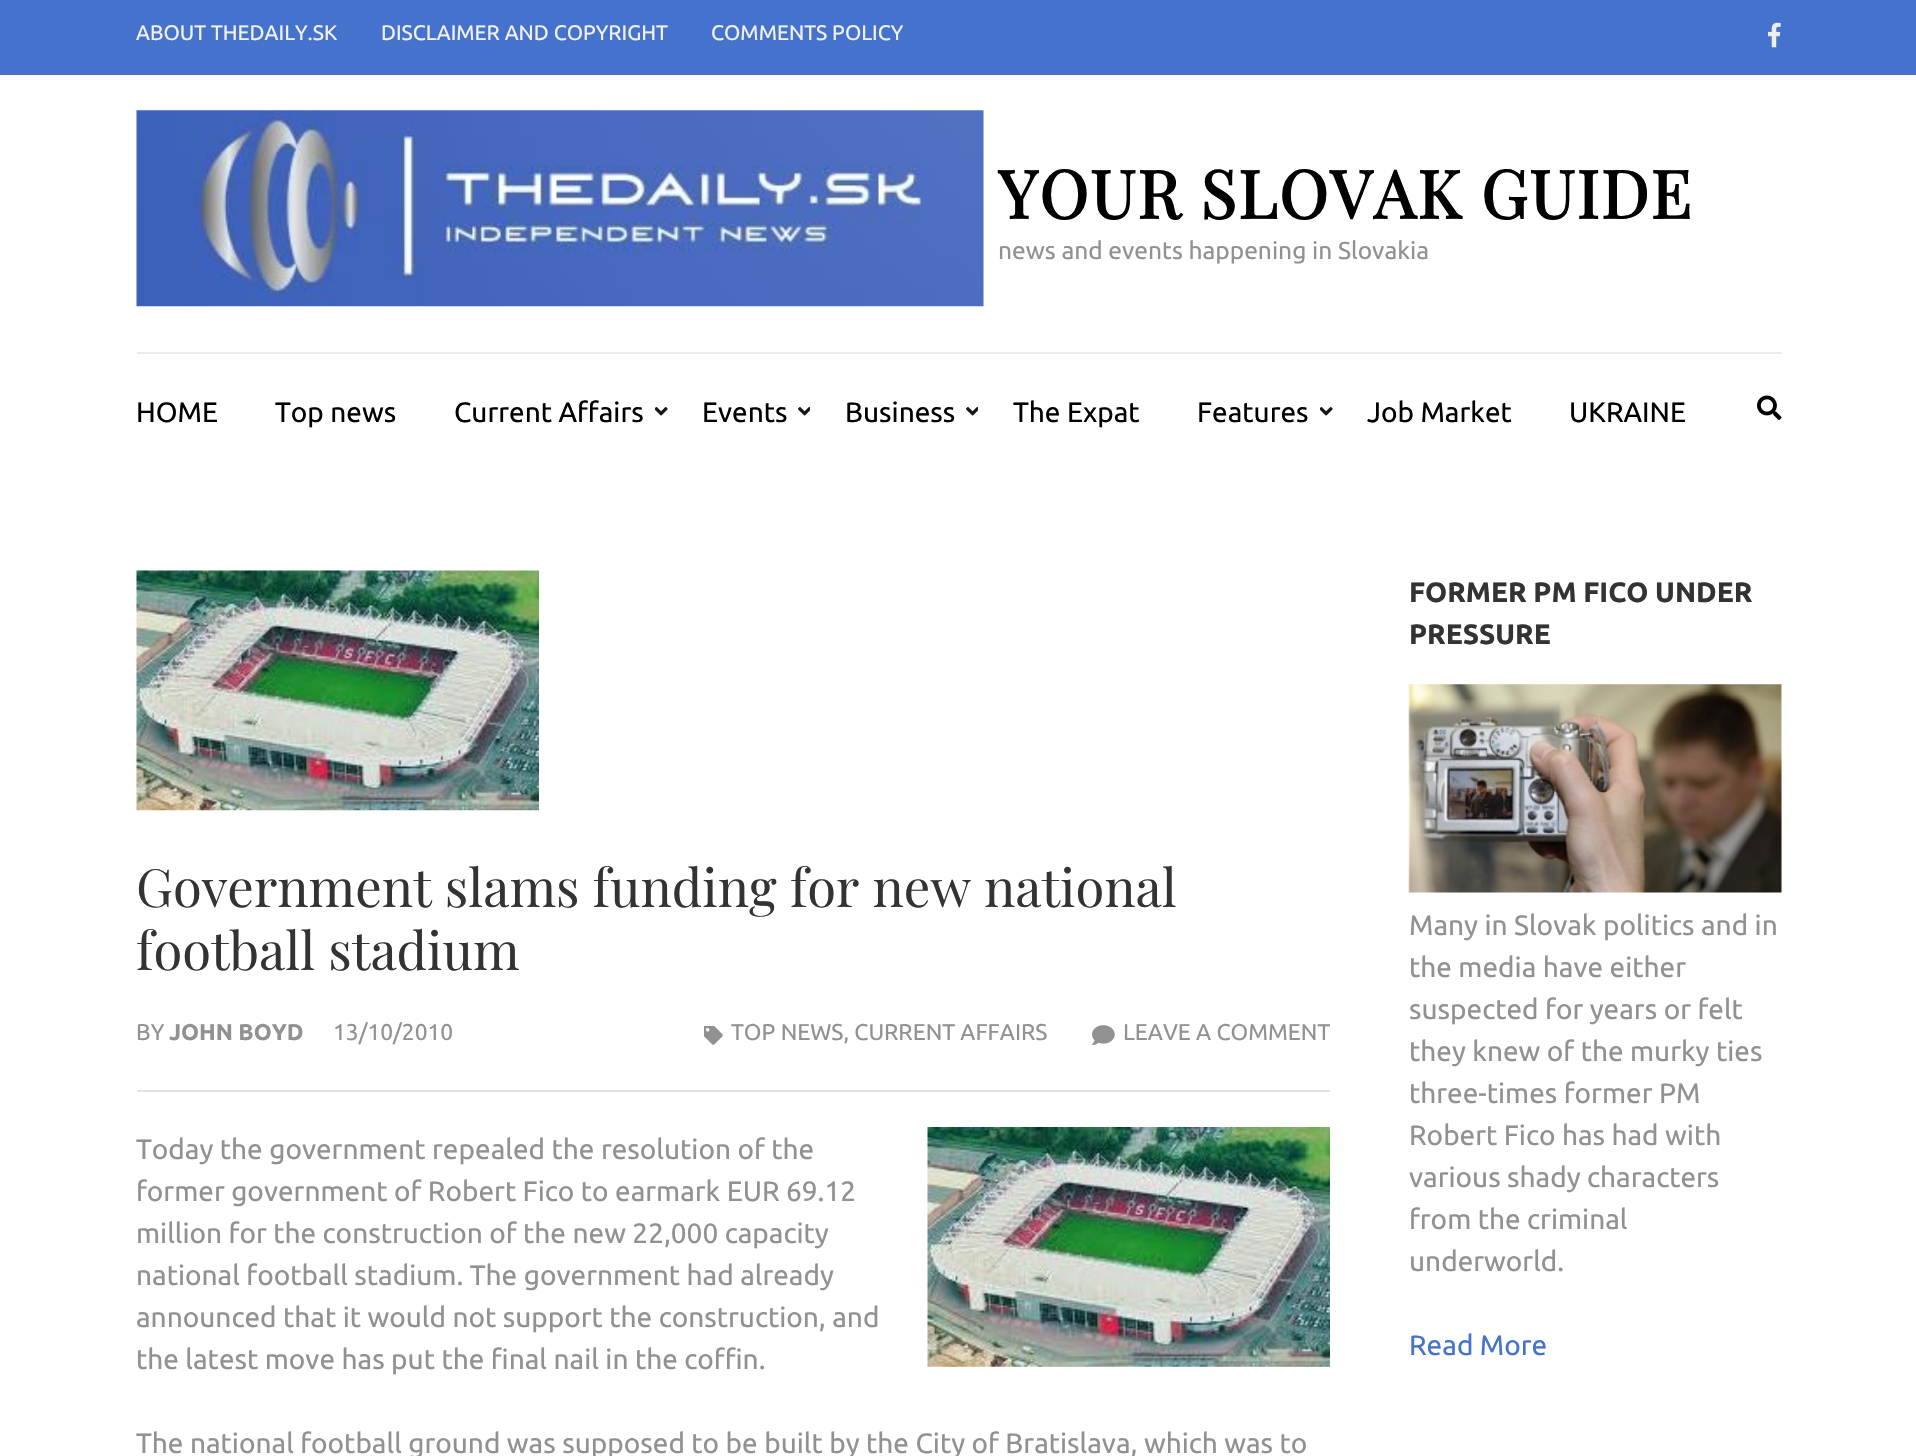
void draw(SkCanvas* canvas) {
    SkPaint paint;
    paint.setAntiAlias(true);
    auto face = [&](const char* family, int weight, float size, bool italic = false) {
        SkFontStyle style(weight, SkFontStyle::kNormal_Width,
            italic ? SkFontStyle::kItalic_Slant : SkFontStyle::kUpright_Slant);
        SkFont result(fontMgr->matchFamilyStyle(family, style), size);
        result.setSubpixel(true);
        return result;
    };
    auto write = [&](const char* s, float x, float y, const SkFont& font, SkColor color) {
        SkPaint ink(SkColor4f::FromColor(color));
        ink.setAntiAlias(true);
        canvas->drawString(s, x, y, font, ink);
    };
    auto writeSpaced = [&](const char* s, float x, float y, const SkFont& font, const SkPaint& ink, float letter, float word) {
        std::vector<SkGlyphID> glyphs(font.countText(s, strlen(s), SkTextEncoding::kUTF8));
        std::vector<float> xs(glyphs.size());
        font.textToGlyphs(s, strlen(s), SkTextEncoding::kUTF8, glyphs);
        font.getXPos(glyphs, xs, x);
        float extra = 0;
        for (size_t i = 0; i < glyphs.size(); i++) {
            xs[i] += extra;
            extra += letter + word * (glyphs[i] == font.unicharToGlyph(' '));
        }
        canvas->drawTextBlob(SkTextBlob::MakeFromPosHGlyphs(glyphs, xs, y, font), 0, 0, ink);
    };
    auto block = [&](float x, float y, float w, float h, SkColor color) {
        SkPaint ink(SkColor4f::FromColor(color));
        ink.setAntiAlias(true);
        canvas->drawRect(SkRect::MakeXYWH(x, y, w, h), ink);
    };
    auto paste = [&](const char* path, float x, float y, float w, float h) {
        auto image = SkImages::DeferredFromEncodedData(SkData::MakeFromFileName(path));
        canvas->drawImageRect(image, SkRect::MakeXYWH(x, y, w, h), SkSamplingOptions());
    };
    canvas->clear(SK_ColorWHITE);
    block(0, 0, 1916, 75, SkColorSetRGB(69, 114, 204));
    auto kFont1 = face("Ubuntu", 400, 21);
    write("ABOUT THEDAILY.SK", 136, 40, kFont1, SkColorSetRGB(241, 241, 241));
    write("DISCLAIMER AND COPYRIGHT", 381, 40, kFont1, SkColorSetRGB(241, 241, 241));
    write("COMMENTS POLICY", 711, 40, kFont1, SkColorSetRGB(241, 241, 241));
    paste("pic1.png", 1768, 22, 13, 26);
    paste("pic2.png", 136, 110, 848, 197);
    auto kFont2 = face("Playfair Display", 700, 66.5f);
    paint.setColor(SK_ColorBLACK);
    writeSpaced("YOUR SLOVAK GUIDE", 998, 219, kFont2, paint, 1.75f, 0);
    auto kFont3 = face("Ubuntu", 400, 24.5f);
    write("news and events happening in Slovakia", 998, 259, kFont3, SkColorSetRGB(145, 145, 145));
    block(137, 352, 1645, 2, SkColorSetRGB(235, 235, 235));
    auto kFont4 = face("Ubuntu", 400, 28);
    write("HOME", 136, 422, kFont4, SK_ColorBLACK);
    write("Top news", 275, 422, kFont4, SK_ColorBLACK);
    write("Current Affairs", 454, 422, kFont4, SK_ColorBLACK);
    paste("pic3.png", 655, 407, 13, 9);
    write("Events", 702, 422, kFont4, SK_ColorBLACK);
    paste("pic4.png", 798, 407, 12, 9);
    write("Business", 845, 422, kFont4, SK_ColorBLACK);
    paste("pic4.png", 966, 407, 12, 9);
    write("The Expat", 1013, 422, kFont4, SK_ColorBLACK);
    write("Features", 1197, 422, kFont4, SK_ColorBLACK);
    paste("pic3.png", 1320, 407, 13, 9);
    write("Job Market", 1367, 422, kFont4, SK_ColorBLACK);
    write("UKRAINE", 1569, 422, kFont4, SK_ColorBLACK);
    paste("pic5.png", 1757, 395, 25, 25);
    paste("pic6.png", 136, 570, 403, 241);
    block(137, 1090, 1193, 2, SkColorSetRGB(227, 227, 227));
    auto kFont5 = face("Playfair Display", 400, 52.5f);
    write("Government slams funding for new national", 136, 907, kFont5, SkColorSetRGB(51, 51, 51));
    write("football stadium", 136, 970, kFont5, SkColorSetRGB(51, 51, 51));
    auto kFont6 = face("Ubuntu", 400, 22.75f);
    write("BY", 136, 1040, kFont6, SkColorSetRGB(145, 145, 145));
    auto kFont7 = face("Ubuntu", 700, 22.75f);
    write("JOHN BOYD", 169, 1040, kFont7, SkColorSetRGB(145, 145, 145));
    write("13/10/2010", 333, 1040, kFont6, SkColorSetRGB(145, 145, 145));
    paste("pic7.png", 704, 1026, 19, 19);
    write("TOP NEWS, CURRENT AFFAIRS", 731, 1040, kFont6, SkColorSetRGB(145, 145, 145));
    paste("pic8.png", 1092, 1025, 23, 20);
    write("LEAVE A COMMENT", 1123, 1040, kFont6, SkColorSetRGB(145, 145, 145));
    write("Today the government repealed the resolution of the", 136, 1159, kFont4, SkColorSetRGB(145, 145, 145));
    paste("pic9.png", 927, 1127, 403, 240);
    write("former government of Robert Fico to earmark EUR 69.12", 136, 1201, kFont4, SkColorSetRGB(145, 145, 145));
    write("million for the construction of the new 22,000 capacity", 136, 1243, kFont4, SkColorSetRGB(145, 145, 145));
    write("national football stadium. The government had already", 136, 1285, kFont4, SkColorSetRGB(145, 145, 145));
    write("announced that it would not support the construction, and", 136, 1327, kFont4, SkColorSetRGB(145, 145, 145));
    write("the latest move has put the final nail in the coffin.", 136, 1369, kFont4, SkColorSetRGB(145, 145, 145));
    write("The national football ground was supposed to be built by the City of Bratislava, which was to", 136, 1453, kFont4, SkColorSetRGB(145, 145, 145));
    auto kFont8 = face("Ubuntu", 700, 28);
    write("FORMER PM FICO UNDER", 1409, 602, kFont8, SkColorSetRGB(51, 51, 51));
    write("PRESSURE", 1409, 644, kFont8, SkColorSetRGB(51, 51, 51));
    paste("pic10.png", 1408, 684, 374, 209);
    write("Many in Slovak politics and in", 1409, 935, kFont4, SkColorSetRGB(145, 145, 145));
    write("the media have either", 1409, 977, kFont4, SkColorSetRGB(145, 145, 145));
    write("suspected for years or felt", 1409, 1019, kFont4, SkColorSetRGB(145, 145, 145));
    write("they knew of the murky ties", 1409, 1061, kFont4, SkColorSetRGB(145, 145, 145));
    write("three-times former PM", 1409, 1103, kFont4, SkColorSetRGB(145, 145, 145));
    write("Robert Fico has had with", 1409, 1145, kFont4, SkColorSetRGB(145, 145, 145));
    write("various shady characters", 1409, 1187, kFont4, SkColorSetRGB(145, 145, 145));
    write("from the criminal", 1409, 1229, kFont4, SkColorSetRGB(145, 145, 145));
    write("underworld.", 1409, 1271, kFont4, SkColorSetRGB(145, 145, 145));
    write("Read More", 1409, 1355, kFont4, SkColorSetRGB(69, 114, 204));
}
